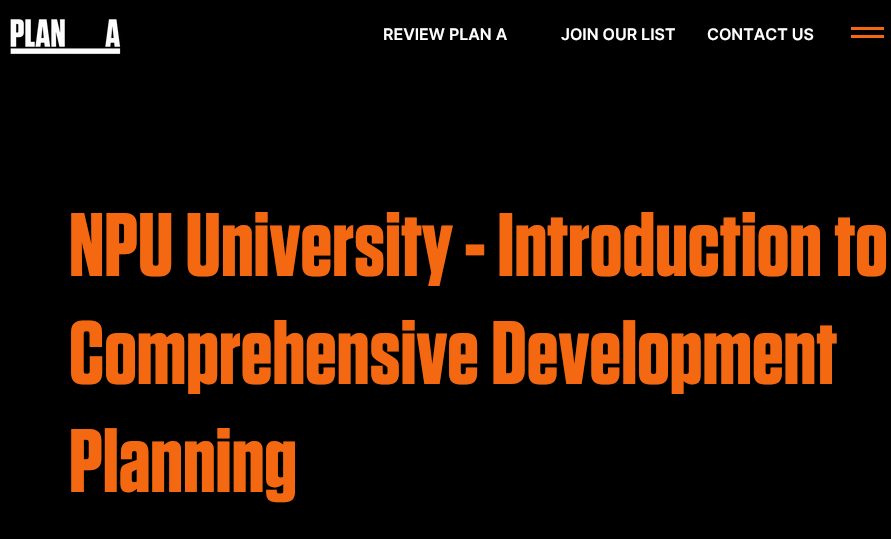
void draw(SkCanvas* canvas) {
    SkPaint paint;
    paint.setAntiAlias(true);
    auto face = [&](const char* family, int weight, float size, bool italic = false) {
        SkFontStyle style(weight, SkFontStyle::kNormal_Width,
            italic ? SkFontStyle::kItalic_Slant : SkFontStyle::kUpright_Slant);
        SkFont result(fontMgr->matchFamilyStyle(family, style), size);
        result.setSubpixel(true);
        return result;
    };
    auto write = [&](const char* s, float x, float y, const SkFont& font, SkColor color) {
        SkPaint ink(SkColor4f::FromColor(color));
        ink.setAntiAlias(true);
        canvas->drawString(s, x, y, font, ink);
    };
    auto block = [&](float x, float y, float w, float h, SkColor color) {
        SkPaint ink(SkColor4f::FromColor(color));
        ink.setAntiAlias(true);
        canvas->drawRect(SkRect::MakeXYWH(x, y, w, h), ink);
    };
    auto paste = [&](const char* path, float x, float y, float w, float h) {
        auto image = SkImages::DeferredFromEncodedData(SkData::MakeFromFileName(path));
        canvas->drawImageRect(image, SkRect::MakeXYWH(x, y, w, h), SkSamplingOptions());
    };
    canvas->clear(SK_ColorBLACK);
    paste("pic1.png", 10, 19, 111, 36);
    auto kFont1 = face("Inter", 600, 16);
    write("REVIEW PLAN A", 383, 40, kFont1, SK_ColorWHITE);
    write("JOIN OUR LIST", 561, 40, kFont1, SK_ColorWHITE);
    write("CONTACT US", 707, 40, kFont1, SK_ColorWHITE);
    block(851, 27, 33, 3, SkColorSetRGB(243, 104, 16));
    block(851, 35, 33, 3, SkColorSetRGB(243, 104, 16));
    auto kFont2 = face("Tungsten", 700, 90);
    write("NPU University - Introduction to", 69, 276, kFont2, SkColorSetRGB(243, 104, 16));
    write("Comprehensive Development", 69, 384, kFont2, SkColorSetRGB(243, 104, 16));
    write("Planning", 69, 492, kFont2, SkColorSetRGB(243, 104, 16));
}
